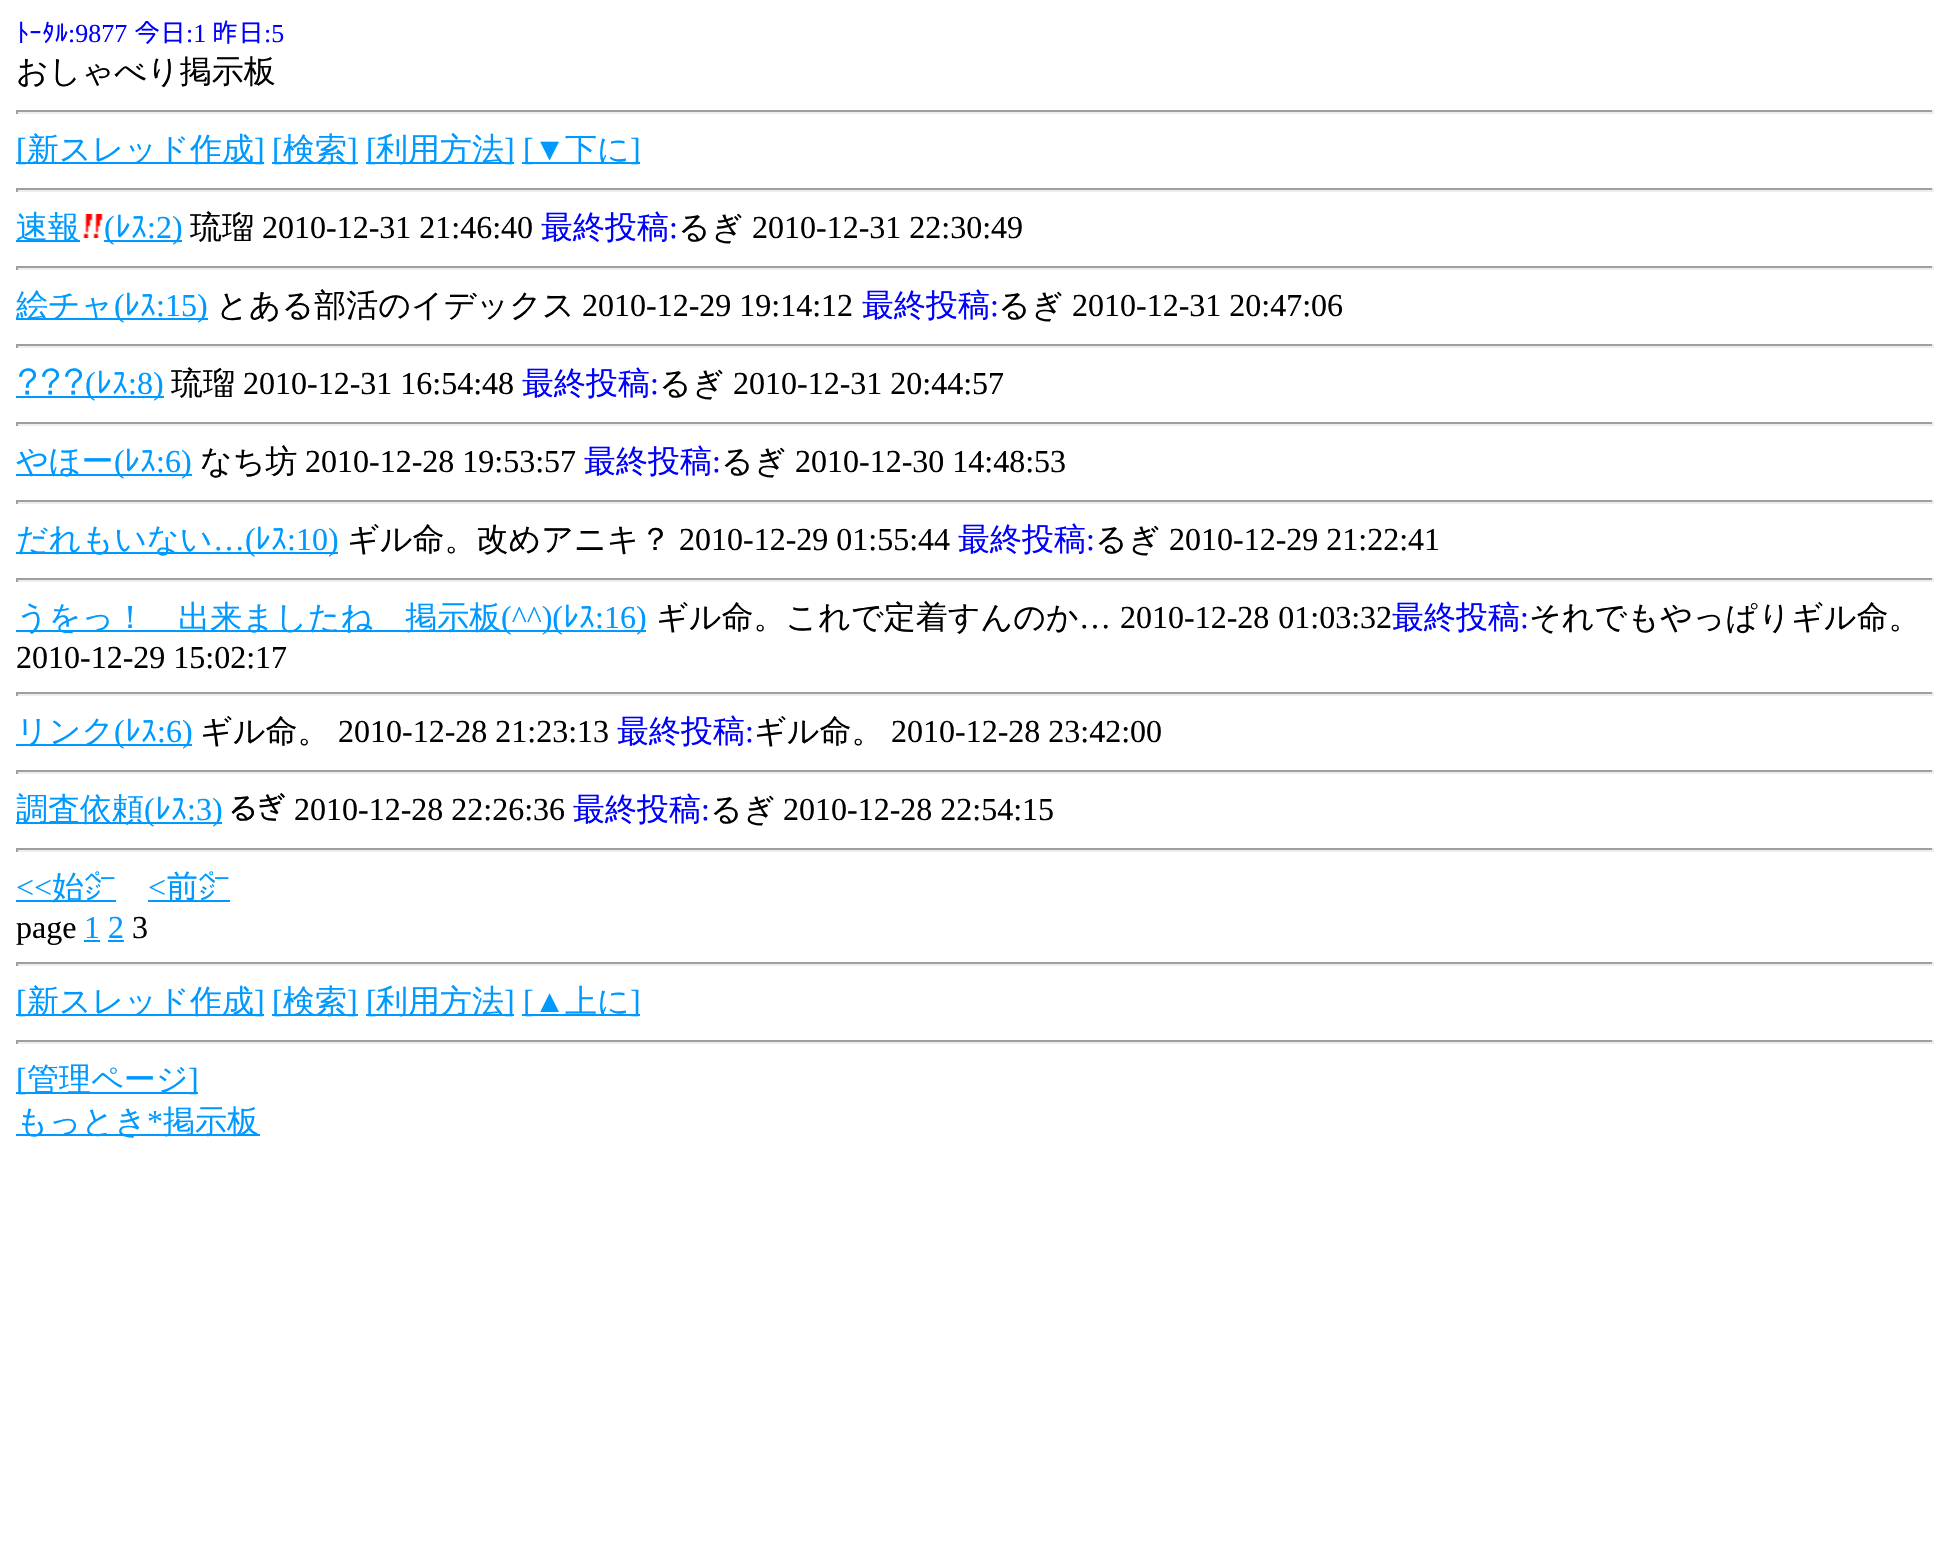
void draw(SkCanvas* canvas) {
    SkPaint paint;
    paint.setAntiAlias(true);
    auto face = [&](const char* family, int weight, float size, bool italic = false) {
        SkFontStyle style(weight, SkFontStyle::kNormal_Width,
            italic ? SkFontStyle::kItalic_Slant : SkFontStyle::kUpright_Slant);
        SkFont result(fontMgr->matchFamilyStyle(family, style), size);
        result.setSubpixel(true);
        return result;
    };
    auto write = [&](const char* s, float x, float y, const SkFont& font, SkColor color) {
        SkPaint ink(SkColor4f::FromColor(color));
        ink.setAntiAlias(true);
        canvas->drawString(s, x, y, font, ink);
    };
    auto writeSpaced = [&](const char* s, float x, float y, const SkFont& font, const SkPaint& ink, float letter, float word) {
        std::vector<SkGlyphID> glyphs(font.countText(s, strlen(s), SkTextEncoding::kUTF8));
        std::vector<float> xs(glyphs.size());
        font.textToGlyphs(s, strlen(s), SkTextEncoding::kUTF8, glyphs);
        font.getXPos(glyphs, xs, x);
        float extra = 0;
        for (size_t i = 0; i < glyphs.size(); i++) {
            xs[i] += extra;
            extra += letter + word * (glyphs[i] == font.unicharToGlyph(' '));
        }
        canvas->drawTextBlob(SkTextBlob::MakeFromPosHGlyphs(glyphs, xs, y, font), 0, 0, ink);
    };
    auto block = [&](float x, float y, float w, float h, SkColor color) {
        SkPaint ink(SkColor4f::FromColor(color));
        ink.setAntiAlias(true);
        canvas->drawRect(SkRect::MakeXYWH(x, y, w, h), ink);
    };
    auto paste = [&](const char* path, float x, float y, float w, float h) {
        auto image = SkImages::DeferredFromEncodedData(SkData::MakeFromFileName(path));
        canvas->drawImageRect(image, SkRect::MakeXYWH(x, y, w, h), SkSamplingOptions());
    };
    canvas->clear(SK_ColorWHITE);
    auto kFont1 = face("IPAPGothic", 400, 26);
    write("ﾄｰﾀﾙ", 16, 42, kFont1, SkColorSetRGB(0, 0, 255));
    auto kFont2 = face("Liberation Serif", 400, 26);
    write(":9877", 68, 42, kFont2, SkColorSetRGB(0, 0, 255));
    write("今日", 134, 42, kFont1, SkColorSetRGB(0, 0, 255));
    write(":1", 186, 42, kFont2, SkColorSetRGB(0, 0, 255));
    write("昨日", 212, 42, kFont1, SkColorSetRGB(0, 0, 255));
    write(":5", 264, 42, kFont2, SkColorSetRGB(0, 0, 255));
    auto kFont3 = face("WenQuanYi Zen Hei", 500, 32);
    write("おしゃべり掲示板", 16, 82, kFont3, SK_ColorBLACK);
    block(16, 110, 1918, 2, SkColorSetRGB(159, 159, 159));
    block(1932, 110, 2, 4, SkColorSetRGB(238, 238, 238));
    block(16, 112, 1918, 2, SkColorSetRGB(238, 238, 238));
    block(16, 110, 2, 4, SkColorSetRGB(159, 159, 159));
    block(16, 162, 248, 2, SkColorSetRGB(0, 153, 255));
    auto kFont4 = face("Liberation Serif", 400, 32);
    write("[", 16, 160, kFont4, SkColorSetRGB(0, 153, 255));
    write("新スレッド作成", 27, 160, kFont3, SkColorSetRGB(0, 153, 255));
    write("]", 254, 160, kFont4, SkColorSetRGB(0, 153, 255));
    block(272, 162, 86, 2, SkColorSetRGB(0, 153, 255));
    write("[", 272, 160, kFont4, SkColorSetRGB(0, 153, 255));
    write("検索", 283, 160, kFont3, SkColorSetRGB(0, 153, 255));
    write("]", 347, 160, kFont4, SkColorSetRGB(0, 153, 255));
    block(366, 162, 148, 2, SkColorSetRGB(0, 153, 255));
    write("[", 366, 160, kFont4, SkColorSetRGB(0, 153, 255));
    write("利用方法", 376, 160, kFont3, SkColorSetRGB(0, 153, 255));
    write("]", 504, 160, kFont4, SkColorSetRGB(0, 153, 255));
    block(522, 162, 118, 2, SkColorSetRGB(0, 153, 255));
    write("[▼", 523, 160, kFont4, SkColorSetRGB(0, 153, 255));
    write("下に", 565, 160, kFont3, SkColorSetRGB(0, 153, 255));
    write("]", 630, 160, kFont4, SkColorSetRGB(0, 153, 255));
    block(16, 188, 1918, 2, SkColorSetRGB(159, 159, 159));
    block(1932, 188, 2, 4, SkColorSetRGB(238, 238, 238));
    block(16, 190, 1918, 2, SkColorSetRGB(238, 238, 238));
    block(16, 188, 2, 4, SkColorSetRGB(159, 159, 159));
    block(16, 240, 64, 2, SkColorSetRGB(0, 153, 255));
    write("速報", 16, 238, kFont3, SkColorSetRGB(0, 153, 255));
    paste("pic1.png", 83, 214, 20, 24);
    block(104, 240, 78, 2, SkColorSetRGB(0, 153, 255));
    write("(", 104, 238, kFont4, SkColorSetRGB(0, 153, 255));
    auto kFont5 = face("IPAPGothic", 400, 32);
    write("ﾚｽ", 115, 238, kFont5, SkColorSetRGB(0, 153, 255));
    write(":2)", 147, 238, kFont4, SkColorSetRGB(0, 153, 255));
    write("琉瑠", 190, 238, kFont3, SK_ColorBLACK);
    write("2010-12-31 21:46:40", 262, 238, kFont4, SK_ColorBLACK);
    write("最終投稿", 541, 238, kFont3, SkColorSetRGB(0, 0, 255));
    write(":", 669, 238, kFont4, SkColorSetRGB(0, 0, 255));
    write("るぎ", 678, 238, kFont3, SK_ColorBLACK);
    write("2010-12-31 22:30:49", 752, 238, kFont4, SK_ColorBLACK);
    block(16, 266, 1918, 2, SkColorSetRGB(159, 159, 159));
    block(1932, 266, 2, 4, SkColorSetRGB(238, 238, 238));
    block(16, 268, 1918, 2, SkColorSetRGB(238, 238, 238));
    block(16, 266, 2, 4, SkColorSetRGB(159, 159, 159));
    block(16, 318, 192, 2, SkColorSetRGB(0, 153, 255));
    write("絵チャ", 16, 316, kFont3, SkColorSetRGB(0, 153, 255));
    write("(", 114, 316, kFont4, SkColorSetRGB(0, 153, 255));
    write("ﾚｽ", 124, 316, kFont5, SkColorSetRGB(0, 153, 255));
    write(":15)", 156, 316, kFont4, SkColorSetRGB(0, 153, 255));
    write("とある部活のイデックス", 216, 316, kFont3, SK_ColorBLACK);
    write("2010-12-29 19:14:12", 582, 316, kFont4, SK_ColorBLACK);
    write("最終投稿", 862, 316, kFont3, SkColorSetRGB(0, 0, 255));
    write(":", 990, 316, kFont4, SkColorSetRGB(0, 0, 255));
    write("るぎ", 998, 316, kFont3, SK_ColorBLACK);
    write("2010-12-31 20:47:06", 1072, 316, kFont4, SK_ColorBLACK);
    block(16, 344, 1918, 2, SkColorSetRGB(159, 159, 159));
    block(1932, 344, 2, 4, SkColorSetRGB(238, 238, 238));
    block(16, 346, 1918, 2, SkColorSetRGB(238, 238, 238));
    block(16, 344, 2, 4, SkColorSetRGB(159, 159, 159));
    write("？？？", 16, 394, kFont5, SkColorSetRGB(0, 153, 255));
    block(16, 396, 148, 2, SkColorSetRGB(0, 153, 255));
    write("(", 85, 394, kFont4, SkColorSetRGB(0, 153, 255));
    write("ﾚｽ", 96, 394, kFont5, SkColorSetRGB(0, 153, 255));
    write(":8)", 128, 394, kFont4, SkColorSetRGB(0, 153, 255));
    write("琉瑠", 171, 394, kFont3, SK_ColorBLACK);
    write("2010-12-31 16:54:48", 243, 394, kFont4, SK_ColorBLACK);
    write("最終投稿", 522, 394, kFont3, SkColorSetRGB(0, 0, 255));
    write(":", 650, 394, kFont4, SkColorSetRGB(0, 0, 255));
    write("るぎ", 659, 394, kFont3, SK_ColorBLACK);
    write("2010-12-31 20:44:57", 733, 394, kFont4, SK_ColorBLACK);
    block(16, 422, 1918, 2, SkColorSetRGB(159, 159, 159));
    block(1932, 422, 2, 4, SkColorSetRGB(238, 238, 238));
    block(16, 424, 1918, 2, SkColorSetRGB(238, 238, 238));
    block(16, 422, 2, 4, SkColorSetRGB(159, 159, 159));
    block(16, 474, 176, 2, SkColorSetRGB(0, 153, 255));
    write("やほー", 16, 472, kFont3, SkColorSetRGB(0, 153, 255));
    write("(", 114, 472, kFont4, SkColorSetRGB(0, 153, 255));
    write("ﾚｽ", 124, 472, kFont5, SkColorSetRGB(0, 153, 255));
    write(":6)", 156, 472, kFont4, SkColorSetRGB(0, 153, 255));
    write("なち坊", 200, 472, kFont3, SK_ColorBLACK);
    write("2010-12-28 19:53:57", 305, 472, kFont4, SK_ColorBLACK);
    write("最終投稿", 584, 472, kFont3, SkColorSetRGB(0, 0, 255));
    write(":", 712, 472, kFont4, SkColorSetRGB(0, 0, 255));
    write("るぎ", 721, 472, kFont3, SK_ColorBLACK);
    write("2010-12-30 14:48:53", 795, 472, kFont4, SK_ColorBLACK);
    block(16, 500, 1918, 2, SkColorSetRGB(159, 159, 159));
    block(1932, 500, 2, 4, SkColorSetRGB(238, 238, 238));
    block(16, 502, 1918, 2, SkColorSetRGB(238, 238, 238));
    block(16, 500, 2, 4, SkColorSetRGB(159, 159, 159));
    block(16, 552, 322, 2, SkColorSetRGB(0, 153, 255));
    write("だれもいない", 16, 550, kFont3, SkColorSetRGB(0, 153, 255));
    write("…(", 213, 550, kFont4, SkColorSetRGB(0, 153, 255));
    write("ﾚｽ", 255, 550, kFont5, SkColorSetRGB(0, 153, 255));
    write(":10)", 287, 550, kFont4, SkColorSetRGB(0, 153, 255));
    write("ギル命。改めアニキ？", 347, 550, kFont3, SK_ColorBLACK);
    write("2010-12-29 01:55:44", 679, 550, kFont4, SK_ColorBLACK);
    write("最終投稿", 958, 550, kFont3, SkColorSetRGB(0, 0, 255));
    write(":", 1086, 550, kFont4, SkColorSetRGB(0, 0, 255));
    write("るぎ", 1095, 550, kFont3, SK_ColorBLACK);
    write("2010-12-29 21:22:41", 1169, 550, kFont4, SK_ColorBLACK);
    block(16, 578, 1918, 2, SkColorSetRGB(159, 159, 159));
    block(1932, 578, 2, 4, SkColorSetRGB(238, 238, 238));
    block(16, 580, 1918, 2, SkColorSetRGB(238, 238, 238));
    block(16, 578, 2, 4, SkColorSetRGB(159, 159, 159));
    block(16, 630, 630, 2, SkColorSetRGB(0, 153, 255));
    write("うをっ！　出来ましたね　掲示板", 16, 628, kFont3, SkColorSetRGB(0, 153, 255));
    write("(^^)(", 501, 628, kFont4, SkColorSetRGB(0, 153, 255));
    write("ﾚｽ", 563, 628, kFont5, SkColorSetRGB(0, 153, 255));
    write(":16)", 595, 628, kFont4, SkColorSetRGB(0, 153, 255));
    write("ギル命。これで定着すんのか", 656, 628, kFont3, SK_ColorBLACK);
    paint.setColor(SK_ColorBLACK);
    writeSpaced("… 2010-12-28 01:03:32", 1079, 628, kFont4, paint, 0, 1);
    write("最終投稿", 1392, 628, kFont3, SkColorSetRGB(0, 0, 255));
    write(":", 1520, 628, kFont4, SkColorSetRGB(0, 0, 255));
    write("それでもやっぱりギル命。", 1529, 628, kFont3, SK_ColorBLACK);
    write("2010-12-29 15:02:17", 16, 668, kFont4, SK_ColorBLACK);
    block(16, 692, 1918, 2, SkColorSetRGB(159, 159, 159));
    block(1932, 692, 2, 4, SkColorSetRGB(238, 238, 238));
    block(16, 694, 1918, 2, SkColorSetRGB(238, 238, 238));
    block(16, 692, 2, 4, SkColorSetRGB(159, 159, 159));
    block(16, 744, 176, 2, SkColorSetRGB(0, 153, 255));
    write("リンク", 16, 742, kFont3, SkColorSetRGB(0, 153, 255));
    write("(", 114, 742, kFont4, SkColorSetRGB(0, 153, 255));
    write("ﾚｽ", 125, 742, kFont5, SkColorSetRGB(0, 153, 255));
    write(":6)", 157, 742, kFont4, SkColorSetRGB(0, 153, 255));
    write("ギル命。", 200, 742, kFont3, SK_ColorBLACK);
    write("2010-12-28 21:23:13", 338, 742, kFont4, SK_ColorBLACK);
    write("最終投稿", 617, 742, kFont3, SkColorSetRGB(0, 0, 255));
    write(":", 745, 742, kFont4, SkColorSetRGB(0, 0, 255));
    write("ギル命。", 754, 742, kFont3, SK_ColorBLACK);
    write("2010-12-28 23:42:00", 891, 742, kFont4, SK_ColorBLACK);
    block(16, 770, 1918, 2, SkColorSetRGB(159, 159, 159));
    block(1932, 770, 2, 4, SkColorSetRGB(238, 238, 238));
    block(16, 772, 1918, 2, SkColorSetRGB(238, 238, 238));
    block(16, 770, 2, 4, SkColorSetRGB(159, 159, 159));
    block(16, 822, 206, 2, SkColorSetRGB(0, 153, 255));
    write("調査依頼", 16, 820, kFont3, SkColorSetRGB(0, 153, 255));
    write("(", 144, 820, kFont4, SkColorSetRGB(0, 153, 255));
    write("ﾚｽ", 155, 820, kFont5, SkColorSetRGB(0, 153, 255));
    write(":3)", 187, 820, kFont4, SkColorSetRGB(0, 153, 255));
    write("るぎ", 230, 820, kFont5, SK_ColorBLACK);
    write("2010-12-28 22:26:36", 294, 820, kFont4, SK_ColorBLACK);
    write("最終投稿", 573, 820, kFont3, SkColorSetRGB(0, 0, 255));
    write(":", 701, 820, kFont4, SkColorSetRGB(0, 0, 255));
    write("るぎ", 710, 820, kFont3, SK_ColorBLACK);
    write("2010-12-28 22:54:15", 783, 820, kFont4, SK_ColorBLACK);
    block(16, 848, 1918, 2, SkColorSetRGB(159, 159, 159));
    block(1932, 848, 2, 4, SkColorSetRGB(238, 238, 238));
    block(16, 850, 1918, 2, SkColorSetRGB(238, 238, 238));
    block(16, 848, 2, 4, SkColorSetRGB(159, 159, 159));
    write("<<", 16, 898, kFont4, SkColorSetRGB(0, 153, 255));
    block(16, 900, 100, 2, SkColorSetRGB(0, 153, 255));
    write("始", 52, 898, kFont3, SkColorSetRGB(0, 153, 255));
    write("㌻", 84, 898, kFont5, SkColorSetRGB(0, 153, 255));
    write("<", 148, 898, kFont4, SkColorSetRGB(0, 153, 255));
    block(148, 900, 82, 2, SkColorSetRGB(0, 153, 255));
    write("前㌻", 166, 898, kFont5, SkColorSetRGB(0, 153, 255));
    write("page", 16, 938, kFont4, SK_ColorBLACK);
    write("1 2", 84, 938, kFont4, SkColorSetRGB(0, 153, 255));
    block(84, 940, 16, 2, SkColorSetRGB(0, 153, 255));
    write("3", 132, 938, kFont4, SK_ColorBLACK);
    block(108, 940, 16, 2, SkColorSetRGB(0, 153, 255));
    block(16, 962, 1918, 2, SkColorSetRGB(159, 159, 159));
    block(1932, 962, 2, 4, SkColorSetRGB(238, 238, 238));
    block(16, 964, 1918, 2, SkColorSetRGB(238, 238, 238));
    block(16, 962, 2, 4, SkColorSetRGB(159, 159, 159));
    block(16, 1014, 248, 2, SkColorSetRGB(0, 153, 255));
    write("[", 16, 1012, kFont4, SkColorSetRGB(0, 153, 255));
    write("新スレッド作成", 27, 1012, kFont3, SkColorSetRGB(0, 153, 255));
    write("]", 254, 1012, kFont4, SkColorSetRGB(0, 153, 255));
    block(272, 1014, 86, 2, SkColorSetRGB(0, 153, 255));
    write("[", 272, 1012, kFont4, SkColorSetRGB(0, 153, 255));
    write("検索", 283, 1012, kFont3, SkColorSetRGB(0, 153, 255));
    write("]", 347, 1012, kFont4, SkColorSetRGB(0, 153, 255));
    block(366, 1014, 148, 2, SkColorSetRGB(0, 153, 255));
    write("[", 366, 1012, kFont4, SkColorSetRGB(0, 153, 255));
    write("利用方法", 376, 1012, kFont3, SkColorSetRGB(0, 153, 255));
    write("]", 504, 1012, kFont4, SkColorSetRGB(0, 153, 255));
    block(522, 1014, 118, 2, SkColorSetRGB(0, 153, 255));
    write("[▲", 523, 1012, kFont4, SkColorSetRGB(0, 153, 255));
    write("上に", 565, 1012, kFont3, SkColorSetRGB(0, 153, 255));
    write("]", 630, 1012, kFont4, SkColorSetRGB(0, 153, 255));
    block(16, 1040, 1918, 2, SkColorSetRGB(159, 159, 159));
    block(1932, 1040, 2, 4, SkColorSetRGB(238, 238, 238));
    block(16, 1042, 1918, 2, SkColorSetRGB(238, 238, 238));
    block(16, 1040, 2, 4, SkColorSetRGB(159, 159, 159));
    block(16, 1092, 182, 2, SkColorSetRGB(0, 153, 255));
    write("[", 16, 1090, kFont4, SkColorSetRGB(0, 153, 255));
    write("管理ページ", 27, 1090, kFont3, SkColorSetRGB(0, 153, 255));
    write("]", 188, 1090, kFont4, SkColorSetRGB(0, 153, 255));
    block(16, 1134, 244, 2, SkColorSetRGB(0, 153, 255));
    write("もっとき", 16, 1132, kFont3, SkColorSetRGB(0, 153, 255));
    write("*", 147, 1132, kFont4, SkColorSetRGB(0, 153, 255));
    write("掲示板", 163, 1132, kFont3, SkColorSetRGB(0, 153, 255));
}
